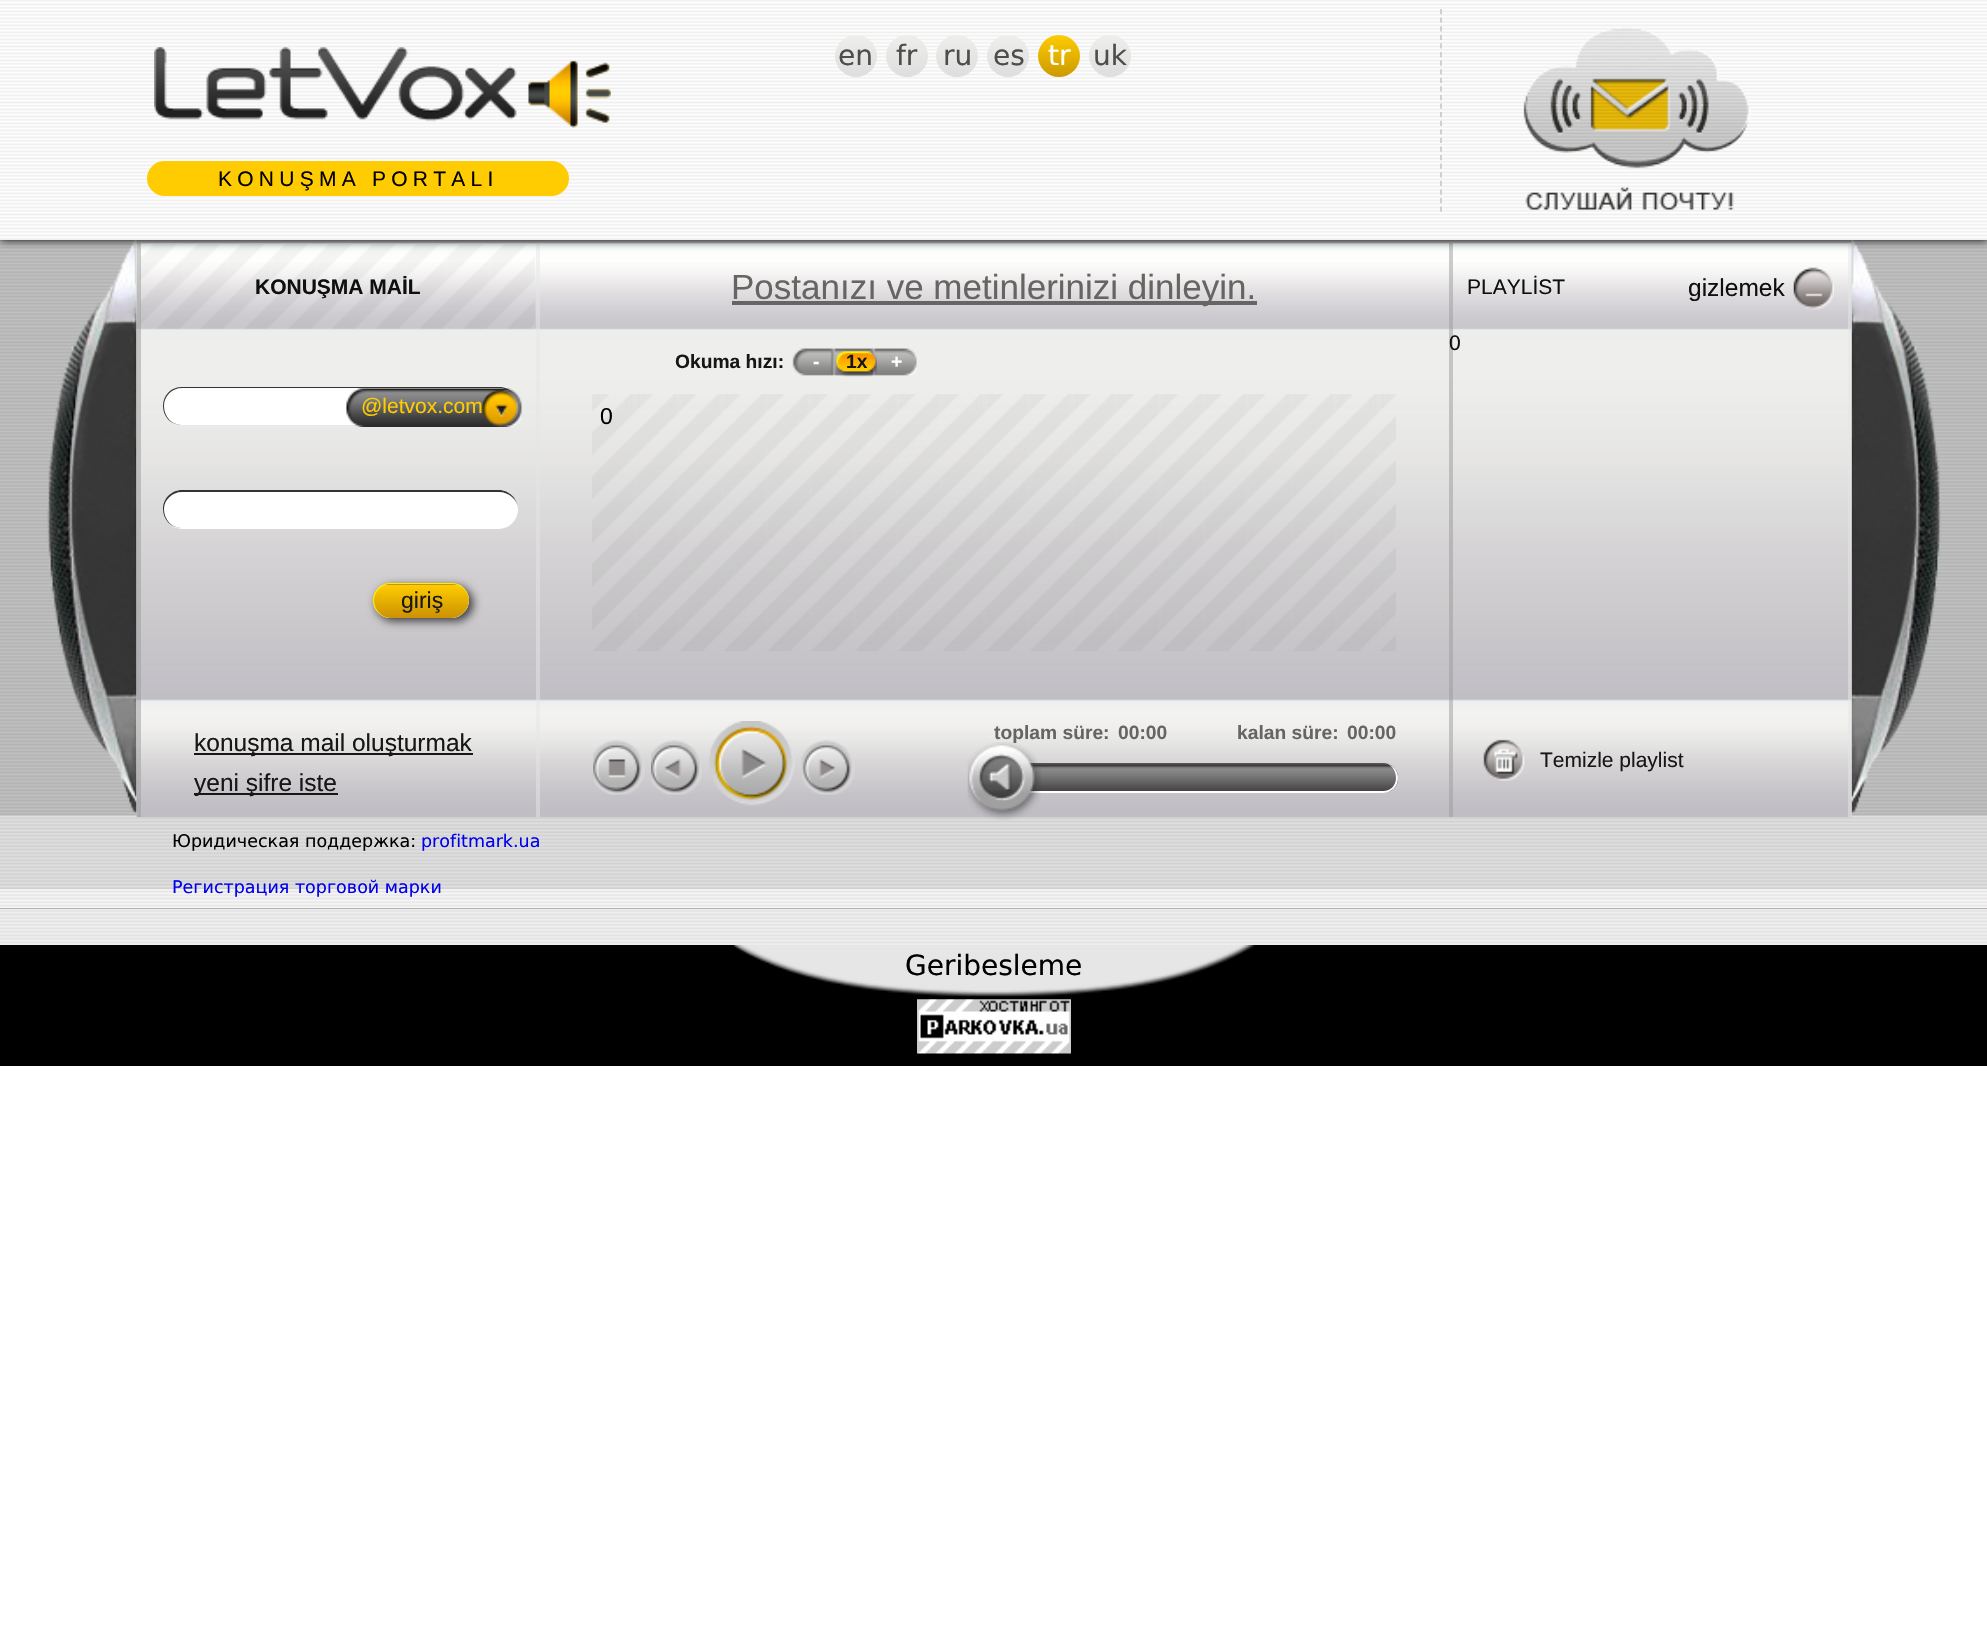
void draw(SkCanvas* canvas) {
    SkPaint paint;
    paint.setAntiAlias(true);
    auto face = [&](const char* family, int weight, float size, bool italic = false) {
        SkFontStyle style(weight, SkFontStyle::kNormal_Width,
            italic ? SkFontStyle::kItalic_Slant : SkFontStyle::kUpright_Slant);
        SkFont result(fontMgr->matchFamilyStyle(family, style), size);
        result.setSubpixel(true);
        return result;
    };
    auto write = [&](const char* s, float x, float y, const SkFont& font, SkColor color) {
        SkPaint ink(SkColor4f::FromColor(color));
        ink.setAntiAlias(true);
        canvas->drawString(s, x, y, font, ink);
    };
    auto writeSpaced = [&](const char* s, float x, float y, const SkFont& font, const SkPaint& ink, float letter, float word) {
        std::vector<SkGlyphID> glyphs(font.countText(s, strlen(s), SkTextEncoding::kUTF8));
        std::vector<float> xs(glyphs.size());
        font.textToGlyphs(s, strlen(s), SkTextEncoding::kUTF8, glyphs);
        font.getXPos(glyphs, xs, x);
        float extra = 0;
        for (size_t i = 0; i < glyphs.size(); i++) {
            xs[i] += extra;
            extra += letter + word * (glyphs[i] == font.unicharToGlyph(' '));
        }
        canvas->drawTextBlob(SkTextBlob::MakeFromPosHGlyphs(glyphs, xs, y, font), 0, 0, ink);
    };
    auto block = [&](float x, float y, float w, float h, SkColor color) {
        SkPaint ink(SkColor4f::FromColor(color));
        ink.setAntiAlias(true);
        canvas->drawRect(SkRect::MakeXYWH(x, y, w, h), ink);
    };
    auto card = [&](float x, float y, float w, float h, float radius, SkColor color) {
        SkPaint ink(SkColor4f::FromColor(color));
        ink.setAntiAlias(true);
        canvas->drawRoundRect(SkRect::MakeXYWH(x, y, w, h), radius, radius, ink);
    };
    auto paste = [&](const char* path, float x, float y, float w, float h) {
        auto image = SkImages::DeferredFromEncodedData(SkData::MakeFromFileName(path));
        canvas->drawImageRect(image, SkRect::MakeXYWH(x, y, w, h), SkSamplingOptions());
    };
    canvas->clear(SK_ColorWHITE);
    paste("pic1.png", 0, 0, 1987, 908);
    paste("pic5.png", 0, 239, 1987, 650);
    paste("pic6.png", 47, 240, 1894, 573);
    paste("pic7.png", 136, 243, 403, 575);
    paste("pic10.png", 539, 243, 910, 575);
    block(536, 243, 4, 574, SkColorSetARGB(128, 230, 230, 230));
    block(137, 243, 4, 574, SkColorSetARGB(128, 153, 153, 153));
    paste("pic8.png", 140, 244, 395, 85);
    paste("pic20.png", 1449, 243, 403, 575);
    block(1848, 243, 4, 574, SkColorSetARGB(128, 230, 230, 230));
    block(1449, 243, 4, 574, SkColorSetARGB(128, 153, 153, 153));
    canvas->save();
    canvas->clipPath(SkPathBuilder(SkPathFillType::kEvenOdd).moveTo(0, 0).lineTo(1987, 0).lineTo(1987, 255).lineTo(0, 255).close().moveTo(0, 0).lineTo(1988, 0).lineTo(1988, 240).lineTo(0, 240).close().detach(), true);
    paint.setColor(SkColorSetRGB(0, 0, 2));
    paint.setMaskFilter(SkMaskFilter::MakeBlur(kNormal_SkBlurStyle, 4.5f));
    canvas->drawRect(SkRect::MakeXYWH(0, 0, 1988, 240), paint);
    paint.setMaskFilter(nullptr);
    canvas->restore();
    paste("pic2.png", 0, 1, 1987, 239);
    {
        const SkColor colors[] = {SkColorSetRGB(238, 238, 235), SkColorSetRGB(222, 222, 222)};
        const float stops[] = {0, 1};
        const SkPoint ends[] = {{856, 35}, {856, 77}};
        paint.setShader(SkGradientShader::MakeLinear(ends, colors, stops, 2, SkTileMode::kClamp));
        paint.setAlpha(255);
    }
    canvas->drawCircle(856, 56, 21, paint);
    auto kFont1 = face("DejaVu Sans", 400, 28);
    write("en", 838, 65, kFont1, SkColorSetRGB(78, 77, 77));
    {
        const SkColor colors[] = {SkColorSetRGB(238, 238, 235), SkColorSetRGB(222, 222, 222)};
        const float stops[] = {0, 1};
        const SkPoint ends[] = {{907, 35}, {907, 77}};
        paint.setShader(SkGradientShader::MakeLinear(ends, colors, stops, 2, SkTileMode::kClamp));
        paint.setAlpha(255);
    }
    canvas->drawCircle(907, 56, 21, paint);
    write("fr", 896, 65, kFont1, SkColorSetRGB(78, 77, 77));
    {
        const SkColor colors[] = {SkColorSetRGB(238, 238, 235), SkColorSetRGB(222, 222, 222)};
        const float stops[] = {0, 1};
        const SkPoint ends[] = {{957, 35}, {957, 77}};
        paint.setShader(SkGradientShader::MakeLinear(ends, colors, stops, 2, SkTileMode::kClamp));
        paint.setAlpha(255);
    }
    canvas->drawCircle(957, 56, 21, paint);
    write("ru", 943, 65, kFont1, SkColorSetRGB(78, 77, 77));
    {
        const SkColor colors[] = {SkColorSetRGB(238, 238, 235), SkColorSetRGB(222, 222, 222)};
        const float stops[] = {0, 1};
        const SkPoint ends[] = {{1008, 35}, {1008, 77}};
        paint.setShader(SkGradientShader::MakeLinear(ends, colors, stops, 2, SkTileMode::kClamp));
        paint.setAlpha(255);
    }
    canvas->drawCircle(1008, 56, 21, paint);
    write("es", 993, 65, kFont1, SkColorSetRGB(78, 77, 77));
    {
        const SkColor colors[] = {SkColorSetRGB(254, 204, 0), SkColorSetRGB(204, 154, 1)};
        const float stops[] = {0, 1};
        const SkPoint ends[] = {{1059, 35}, {1059, 77}};
        paint.setShader(SkGradientShader::MakeLinear(ends, colors, stops, 2, SkTileMode::kClamp));
        paint.setAlpha(255);
    }
    canvas->drawCircle(1059, 56, 21, paint);
    write("tr", 1048, 65, kFont1, SK_ColorWHITE);
    {
        const SkColor colors[] = {SkColorSetRGB(238, 238, 235), SkColorSetRGB(222, 222, 222)};
        const float stops[] = {0, 1};
        const SkPoint ends[] = {{1110, 35}, {1110, 77}};
        paint.setShader(SkGradientShader::MakeLinear(ends, colors, stops, 2, SkTileMode::kClamp));
        paint.setAlpha(255);
    }
    canvas->drawCircle(1110, 56, 21, paint);
    write("uk", 1093, 65, kFont1, SkColorSetRGB(78, 77, 77));
    paint.setStyle(SkPaint::kStroke_Style);
    paint.setStrokeWidth(1.8f);
    paint.setShader(nullptr);
    paint.setColor(SkColorSetRGB(204, 204, 204));
    paint.setPathEffect(SkDashPathEffect::Make({{5.25f, 3.34f}}, 0));
    canvas->drawPath(SkPathBuilder().moveTo(1441, 9).lineTo(1441, 212).detach(), paint);
    paint.setPathEffect(nullptr);
    paste("pic3.png", 1523, 27, 228, 183);
    paste("pic4.png", 154, 47, 457, 81);
    card(147, 161, 422, 35, 17.5f, SkColorSetRGB(254, 204, 0));
    auto kFont2 = face("Liberation Sans", 400, 21);
    paint.setStyle(SkPaint::kFill_Style);
    paint.setColor(SK_ColorBLACK);
    writeSpaced("KONUŞMA PORTALI", 218, 186, kFont2, paint, 5.25f, 0);
    auto kFont3 = face("Liberation Sans", 700, 21);
    write("KONUŞMA MAİL", 255, 294, kFont3, SkColorSetRGB(15, 15, 15));
    card(163, 387, 355, 38, 19, SK_ColorWHITE);
    paint.setColor(SkColorSetRGB(51, 51, 51));
    canvas->drawPath(SkPathBuilder(SkPathFillType::kEvenOdd).moveTo(182, 387).lineTo(499, 387).cubicTo(509, 387, 518, 395, 518, 406).cubicTo(518, 417, 509, 425, 499, 425).lineTo(182, 425).cubicTo(171, 425, 163, 417, 163, 406).cubicTo(163, 395, 171, 387, 182, 387).close().moveTo(182, 388).lineTo(499, 388).cubicTo(509, 388, 518, 396, 518, 406).cubicTo(518, 417, 509, 425, 499, 425).lineTo(182, 425).cubicTo(172, 425, 164, 417, 164, 406).cubicTo(164, 396, 172, 388, 182, 388).close().detach(), paint);
    paste("pic9.png", 346, 388, 176, 39);
    write("@letvox.com", 361, 413, kFont2, SkColorSetRGB(254, 204, 0));
    card(163, 490, 355, 39, 19.5f, SK_ColorWHITE);
    canvas->drawPath(SkPathBuilder(SkPathFillType::kEvenOdd).moveTo(182, 490).lineTo(499, 490).cubicTo(509, 490, 518, 499, 518, 509).cubicTo(518, 520, 509, 528, 499, 528).lineTo(182, 528).cubicTo(171, 528, 163, 520, 163, 509).cubicTo(163, 499, 171, 490, 182, 490).close().moveTo(182, 492).lineTo(499, 492).cubicTo(509, 492, 518, 500, 518, 509).cubicTo(518, 520, 509, 528, 499, 528).lineTo(182, 528).cubicTo(172, 528, 164, 520, 164, 509).cubicTo(164, 500, 172, 492, 182, 492).close().detach(), paint);
    paint.setColor(SkColorSetARGB(184, 0, 0, 0));
    paint.setMaskFilter(SkMaskFilter::MakeBlur(kNormal_SkBlurStyle, 5));
    canvas->drawRoundRect(SkRect::MakeXYWH(376, 586, 97, 35), 17.5f, 17.5f, paint);
    paint.setMaskFilter(nullptr);
    card(373, 583, 96, 35, 17.5f, SkColorSetRGB(239, 239, 239));
    canvas->save();
    canvas->clipPath(SkPathBuilder().moveTo(390.5f, 583).lineTo(451.5f, 583).cubicTo(461, 583, 469, 591, 469, 600.5f).cubicTo(469, 610, 461, 618, 451.5f, 618).lineTo(390.5f, 618).cubicTo(381, 618, 373, 610, 373, 600.5f).cubicTo(373, 591, 381, 583, 390.5f, 583).close().detach(), true);
    {
        const SkColor colors[] = {SkColorSetRGB(254, 204, 0), SkColorSetRGB(204, 145, 4)};
        const float stops[] = {0, 1};
        const SkPoint ends[] = {{422, 551}, {422, 585}};
        paint.setShader(SkGradientShader::MakeLinear(ends, colors, stops, 2, SkTileMode::kClamp));
        paint.setAlpha(255);
    }
    canvas->drawRect(SkRect::MakeXYWH(382, 583, 78, 2), paint);
    {
        const SkColor colors[] = {SkColorSetRGB(254, 204, 0), SkColorSetRGB(204, 145, 4)};
        const float stops[] = {0, 1};
        const SkPoint ends[] = {{422, 585}, {422, 618}};
        paint.setShader(SkGradientShader::MakeLinear(ends, colors, stops, 2, SkTileMode::kClamp));
        paint.setAlpha(255);
    }
    canvas->drawPath(SkPathBuilder().moveTo(373, 585).lineTo(469, 585).lineTo(469, 600.5f).cubicTo(469, 610, 461, 618, 451.5f, 618).lineTo(390.5f, 618).cubicTo(381, 618, 373, 610, 373, 600.5f).close().detach(), paint);
    canvas->restore();
    paint.setShader(nullptr);
    paint.setColor(SkColorSetRGB(255, 238, 0));
    canvas->drawPath(SkPathBuilder(SkPathFillType::kEvenOdd).moveTo(390, 583).lineTo(452, 583).cubicTo(461, 583, 469, 591, 469, 600).cubicTo(469, 610, 461, 618, 452, 618).lineTo(390, 618).cubicTo(381, 618, 373, 610, 373, 600).cubicTo(373, 591, 381, 583, 390, 583).close().moveTo(390, 584).lineTo(452, 584).cubicTo(461, 584, 469, 592, 469, 600).cubicTo(469, 610, 461, 618, 452, 618).lineTo(390, 618).cubicTo(382, 618, 374, 610, 374, 600).cubicTo(374, 592, 382, 584, 390, 584).close().detach(), paint);
    auto kFont4 = face("Liberation Sans", 400, 23);
    write("giriş", 401, 608, kFont4, SkColorSetRGB(24, 23, 22));
    block(194, 753, 279, 2, SkColorSetRGB(24, 23, 22));
    auto kFont5 = face("Liberation Sans", 400, 24.5f);
    write("konuşma mail oluşturmak", 194, 751, kFont5, SkColorSetRGB(24, 23, 22));
    block(194, 793, 144, 2, SkColorSetRGB(24, 23, 22));
    write("yeni şifre iste", 194, 791, kFont5, SkColorSetRGB(24, 23, 22));
    block(732, 301, 525, 4, SkColorSetRGB(102, 101, 100));
    auto kFont6 = face("Liberation Sans", 400, 35);
    write("Postanızı ve metinlerinizi dinleyin.", 731, 299, kFont6, SkColorSetRGB(102, 101, 100));
    paste("pic11.png", 792, 348, 125, 28);
    auto kFont7 = face("Liberation Sans", 700, 19.25f);
    write("Okuma hızı:", 675, 368, kFont7, SkColorSetRGB(24, 23, 22));
    write("-", 813, 368, kFont7, SK_ColorWHITE);
    paste("pic12.png", 836, 351, 41, 26);
    write("1x", 846, 368, kFont7, SkColorSetRGB(24, 23, 22));
    write("+", 891, 368, kFont7, SK_ColorWHITE);
    paste("pic13.png", 592, 394, 804, 257);
    write("0", 600, 424, kFont4, SK_ColorBLACK);
    paste("pic14.png", 593, 740, 52, 55);
    paste("pic15.png", 651, 740, 51, 55);
    paste("pic16.png", 709, 721, 86, 85);
    paste("pic17.png", 801, 740, 54, 55);
    write("toplam süre:", 994, 739, kFont7, SkColorSetRGB(102, 101, 100));
    write("00:00", 1118, 739, kFont7, SkColorSetRGB(102, 101, 100));
    write("kalan süre:", 1237, 739, kFont7, SkColorSetRGB(102, 101, 100));
    write("00:00", 1347, 739, kFont7, SkColorSetRGB(102, 101, 100));
    card(994, 763, 404, 30, 15, SkColorSetRGB(123, 122, 122));
    paste("pic18.png", 1028, 763, 371, 30);
    paint.setColor(SK_ColorWHITE);
    canvas->drawPath(SkPathBuilder(SkPathFillType::kEvenOdd).moveTo(1009, 763).lineTo(1383, 763).cubicTo(1392, 763, 1398, 770, 1398, 778).cubicTo(1398, 786, 1392, 793, 1383, 793).lineTo(1009, 793).cubicTo(1001, 793, 994, 786, 994, 778).cubicTo(994, 770, 1001, 763, 1009, 763).close().moveTo(1009, 763).lineTo(1383, 763).cubicTo(1391, 763, 1396, 770, 1396, 778).cubicTo(1396, 785, 1391, 791, 1383, 791).lineTo(1009, 791).cubicTo(1001, 791, 994, 785, 994, 778).cubicTo(994, 770, 1001, 763, 1009, 763).close().detach(), paint);
    paste("pic19.png", 967, 742, 75, 79);
    write("PLAYLİST", 1467, 294, kFont2, SkColorSetRGB(15, 15, 15));
    paste("pic21.png", 1793, 267, 41, 43);
    write("gizlemek", 1688, 296, kFont5, SkColorSetRGB(15, 15, 15));
    write("0", 1449, 350, kFont2, SkColorSetRGB(15, 15, 15));
    paste("pic22.png", 1483, 739, 42, 42);
    write("Temizle playlist", 1540, 767, kFont2, SkColorSetRGB(24, 23, 22));
    auto kFont8 = face("DejaVu Sans", 400, 17.5f);
    write("Юридическая поддержка:", 172, 847, kFont8, SK_ColorBLACK);
    write("profitmark.ua", 421, 847, kFont8, SkColorSetRGB(0, 0, 238));
    write("Регистрация торговой марки", 172, 893, kFont8, SkColorSetRGB(0, 0, 238));
    block(0, 908, 1987, 158, SK_ColorBLACK);
    paste("pic23.png", 0, 908, 1987, 37);
    paste("pic24.png", 733, 945, 522, 52);
    write("Geribesleme", 905, 975, kFont1, SK_ColorBLACK);
    paste("pic25.png", 917, 999, 154, 55);
}
